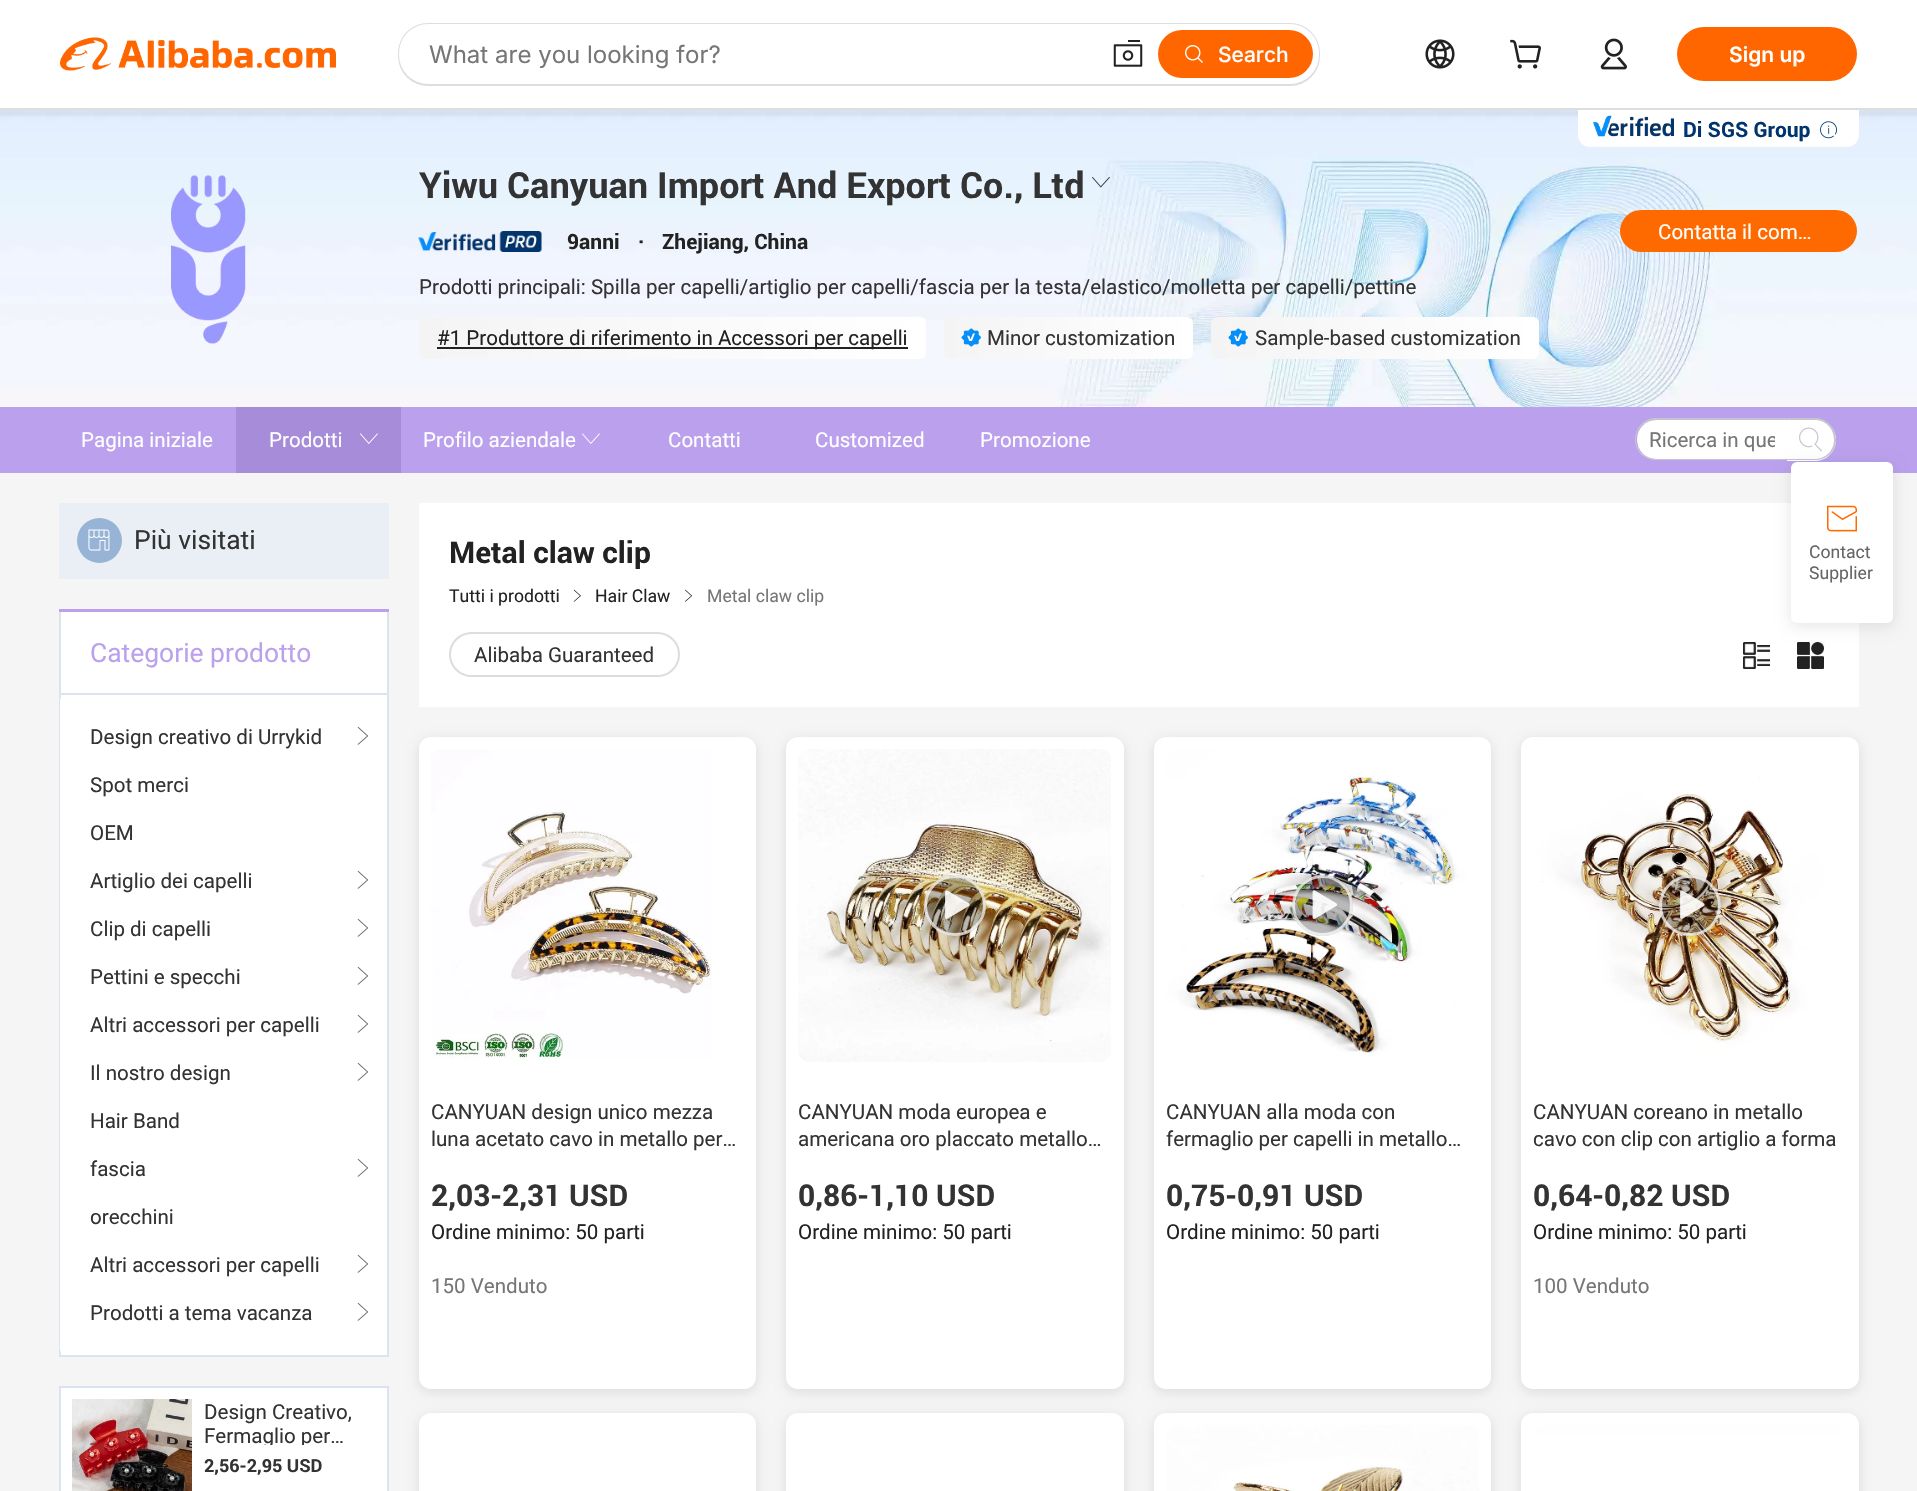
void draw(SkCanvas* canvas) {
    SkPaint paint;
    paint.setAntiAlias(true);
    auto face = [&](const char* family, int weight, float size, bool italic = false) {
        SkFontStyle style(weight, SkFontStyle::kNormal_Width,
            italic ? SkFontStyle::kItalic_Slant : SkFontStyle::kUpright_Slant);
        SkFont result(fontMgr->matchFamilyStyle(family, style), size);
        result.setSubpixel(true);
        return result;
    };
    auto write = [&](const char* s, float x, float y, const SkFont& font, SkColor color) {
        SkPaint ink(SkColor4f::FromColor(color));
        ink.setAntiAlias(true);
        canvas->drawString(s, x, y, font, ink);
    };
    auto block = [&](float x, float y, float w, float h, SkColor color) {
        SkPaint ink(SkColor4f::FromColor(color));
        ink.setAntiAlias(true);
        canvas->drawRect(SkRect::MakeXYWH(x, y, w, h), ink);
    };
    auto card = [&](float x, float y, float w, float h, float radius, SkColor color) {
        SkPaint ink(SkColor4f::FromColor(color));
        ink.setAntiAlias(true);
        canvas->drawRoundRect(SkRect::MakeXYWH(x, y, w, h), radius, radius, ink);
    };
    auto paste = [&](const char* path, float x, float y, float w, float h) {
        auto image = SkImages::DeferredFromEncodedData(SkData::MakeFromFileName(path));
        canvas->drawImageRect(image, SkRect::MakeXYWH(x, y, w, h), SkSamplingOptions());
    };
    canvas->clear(SkColorSetRGB(245, 245, 245));
    paste("pic7.png", 0, 110, 1917, 297);
    paint.setColor(SkColorSetARGB(13, 0, 0, 0));
    paint.setMaskFilter(SkMaskFilter::MakeBlur(kNormal_SkBlurStyle, 1.5f));
    canvas->drawRect(SkRect::MakeXYWH(-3, 110, 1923, 6), paint);
    paint.setMaskFilter(nullptr);
    block(0, 0, 1917, 108, SK_ColorWHITE);
    block(0, 108, 1917, 2, SkColorSetRGB(221, 221, 221));
    paste("pic1.png", 60, 37, 276, 34);
    card(398, 23, 922, 63, 30, SkColorSetRGB(221, 221, 221));
    card(399, 24, 920, 60, 29, SK_ColorWHITE);
    auto kFont1 = face("Inter", 400, 24);
    write("What are you looking for?", 429, 63, kFont1, SkColorSetRGB(118, 118, 118));
    paste("pic2.png", 1113, 40, 30, 27);
    card(1158, 30, 155, 48, 24, SkColorSetRGB(255, 102, 0));
    paste("pic3.png", 1185, 45, 18, 18);
    auto kFont2 = face("Inter", 500, 21);
    write("Search", 1218, 62, kFont2, SK_ColorWHITE);
    paste("pic4.png", 1425, 39, 30, 30);
    paste("pic5.png", 1510, 39, 31, 30);
    paste("pic6.png", 1600, 38, 27, 32);
    card(1677, 27, 180, 54, 27, SkColorSetRGB(255, 102, 0));
    auto kFont3 = face("Inter", 600, 21);
    write("Sign up", 1729, 62, kFont3, SK_ColorWHITE);
    paint.setColor(SK_ColorWHITE);
    canvas->drawPath(SkPathBuilder().moveTo(1578, 110).lineTo(1859, 110).lineTo(1859, 135).cubicTo(1859, 141.5f, 1853.5f, 147, 1847, 147).lineTo(1590, 147).cubicTo(1583.5f, 147, 1578, 141.5f, 1578, 135).close().detach(), paint);
    paste("pic8.png", 1593, 115, 81, 22);
    auto kFont4 = face("Roboto", 700, 21);
    write("Di SGS Group", 1683, 137, kFont4, SkColorSetRGB(0, 52, 110));
    paste("pic9.png", 1820, 121, 17, 18);
    paste("pic10.png", 171, 175, 75, 169);
    auto kFont5 = face("Roboto", 700, 36);
    write("Yiwu Canyuan Import And Export Co., Ltd", 419, 198, kFont5, SkColorSetRGB(51, 51, 51));
    paste("pic11.png", 1092, 177, 18, 11);
    paste("pic12.png", 418, 231, 124, 21);
    write("9anni", 567, 249, kFont4, SkColorSetRGB(34, 34, 34));
    write("·", 638, 249, kFont4, SkColorSetRGB(34, 34, 34));
    write("Zhejiang, China", 662, 249, kFont4, SkColorSetRGB(34, 34, 34));
    auto kFont6 = face("Roboto", 400, 21);
    write("Prodotti principali: Spilla per capelli/artiglio per capelli/fascia per la testa/elastico/molletta per capelli/pettine", 419, 294, kFont6, SkColorSetRGB(51, 51, 51));
    {
        const SkColor colors[] = {SK_ColorWHITE, SkColorSetRGB(244, 244, 244)};
        const float stops[] = {0, 1};
        const SkPoint ends[] = {{926, 337}, {419, 338}};
        paint.setShader(SkGradientShader::MakeLinear(ends, colors, stops, 2, SkTileMode::kClamp));
        paint.setAlpha(255);
    }
    canvas->drawRoundRect(SkRect::MakeXYWH(419, 317, 507, 42), 6, 6, paint);
    block(437, 347, 471, 2, SkColorSetRGB(34, 34, 34));
    write("#1 Produttore di riferimento in Accessori per capelli", 437, 345, kFont6, SkColorSetRGB(34, 34, 34));
    {
        const SkColor colors[] = {SK_ColorWHITE, SkColorSetRGB(244, 244, 244)};
        const float stops[] = {0, 1};
        const SkPoint ends[] = {{1193, 337}, {944, 338}};
        paint.setShader(SkGradientShader::MakeLinear(ends, colors, stops, 2, SkTileMode::kClamp));
        paint.setAlpha(255);
    }
    canvas->drawRoundRect(SkRect::MakeXYWH(944, 317, 249, 42), 6, 6, paint);
    paste("pic13.png", 961, 328, 20, 19);
    write("Minor customization", 987, 345, kFont6, SkColorSetRGB(51, 51, 51));
    {
        const SkColor colors[] = {SK_ColorWHITE, SkColorSetRGB(244, 244, 244)};
        const float stops[] = {0, 1};
        const SkPoint ends[] = {{1539, 337}, {1211, 338}};
        paint.setShader(SkGradientShader::MakeLinear(ends, colors, stops, 2, SkTileMode::kClamp));
        paint.setAlpha(255);
    }
    canvas->drawRoundRect(SkRect::MakeXYWH(1211, 317, 328, 42), 6, 6, paint);
    paste("pic14.png", 1228, 328, 20, 19);
    write("Sample-based customization", 1255, 345, kFont6, SkColorSetRGB(51, 51, 51));
    card(1620, 210, 237, 42, 21, SkColorSetRGB(255, 106, 0));
    write("Contatta il com…", 1658, 239, kFont6, SK_ColorWHITE);
    block(0, 407, 1917, 66, SkColorSetRGB(187, 161, 237));
    write("Pagina iniziale", 81, 447, kFont6, SK_ColorWHITE);
    block(236, 407, 165, 66, SkColorSetRGB(167, 141, 217));
    write("Prodotti", 269, 447, kFont6, SK_ColorWHITE);
    paste("pic15.png", 360, 433, 18, 11);
    write("Profilo aziendale", 423, 447, kFont6, SK_ColorWHITE);
    paste("pic16.png", 582, 433, 18, 11);
    write("Contatti", 668, 447, kFont6, SK_ColorWHITE);
    write("Customized", 815, 447, kFont6, SK_ColorWHITE);
    write("Promozione", 980, 447, kFont6, SK_ColorWHITE);
    paint.setShader(nullptr);
    paint.setColor(SkColorSetRGB(196, 198, 207));
    canvas->drawPath(SkPathBuilder(SkPathFillType::kEvenOdd).moveTo(1656, 418).lineTo(1786, 418).lineTo(1786, 460).lineTo(1656, 460).cubicTo(1644, 460, 1635, 451, 1635, 440).cubicTo(1635, 428, 1644, 418, 1656, 418).close().moveTo(1656, 420).lineTo(1786, 420).lineTo(1786, 459).lineTo(1656, 459).cubicTo(1645, 459, 1636, 450, 1636, 440).cubicTo(1636, 429, 1645, 420, 1656, 420).close().detach(), paint);
    paint.setColor(SK_ColorWHITE);
    canvas->drawPath(SkPathBuilder().moveTo(1656.5f, 420).lineTo(1786, 420).cubicTo(1786.5f, 420, 1787, 420.5f, 1787, 421).lineTo(1787, 458).cubicTo(1787, 458.5f, 1786.5f, 459, 1786, 459).lineTo(1656.5f, 459).cubicTo(1645.5f, 459, 1637, 450.5f, 1637, 439.5f).cubicTo(1637, 428.5f, 1645.5f, 420, 1656.5f, 420).close().detach(), paint);
    canvas->save();
    canvas->clipRect(SkRect::MakeXYWH(1649, 428, 126, 24));
    write("Ricerca in que", 1649, 447, kFont6, SkColorSetRGB(118, 118, 118));
    canvas->restore();
    canvas->drawPath(SkPathBuilder().moveTo(1787, 419).lineTo(1815, 419).cubicTo(1826.5f, 419, 1836, 428.5f, 1836, 440).cubicTo(1836, 451.5f, 1826.5f, 461, 1815, 461).lineTo(1787, 461).close().detach(), paint);
    paint.setColor(SkColorSetRGB(196, 198, 207));
    canvas->drawPath(SkPathBuilder(SkPathFillType::kEvenOdd).moveTo(1786, 418).lineTo(1815, 418).cubicTo(1827, 418, 1836, 428, 1836, 440).cubicTo(1836, 451, 1827, 460, 1815, 460).lineTo(1786, 460).close().moveTo(1786, 420).lineTo(1815, 420).cubicTo(1826, 420, 1834, 429, 1834, 440).cubicTo(1834, 450, 1826, 459, 1815, 459).lineTo(1786, 459).close().detach(), paint);
    paste("pic17.png", 1799, 427, 23, 25);
    block(59, 503, 330, 76, SkColorSetRGB(233, 239, 245));
    paint.setColor(SkColorSetRGB(151, 179, 213));
    canvas->drawCircle(99.5f, 540.5f, 22.5f, paint);
    paste("pic18.png", 88, 529, 22, 22);
    auto kFont7 = face("Roboto", 400, 27);
    write("Più visitati", 134, 549, kFont7, SkColorSetRGB(51, 51, 51));
    block(61, 612, 326, 743, SK_ColorWHITE);
    block(59, 609, 330, 3, SkColorSetRGB(187, 161, 237));
    block(387, 612, 2, 744, SkColorSetRGB(219, 227, 239));
    block(59, 1355, 330, 2, SkColorSetRGB(219, 227, 239));
    block(59, 612, 2, 744, SkColorSetRGB(219, 227, 239));
    block(60, 693, 327, 2, SkColorSetRGB(219, 227, 239));
    write("Categorie prodotto", 90, 662, kFont7, SkColorSetRGB(187, 161, 237));
    card(60, 695, 327, 660, 6, SK_ColorWHITE);
    write("Design creativo di Urrykid", 90, 744, kFont6, SkColorSetRGB(51, 51, 51));
    paste("pic19.png", 357, 726, 12, 19);
    write("Spot merci", 90, 792, kFont6, SkColorSetRGB(51, 51, 51));
    write("OEM", 90, 840, kFont6, SkColorSetRGB(51, 51, 51));
    write("Artiglio dei capelli", 90, 888, kFont6, SkColorSetRGB(51, 51, 51));
    paste("pic19.png", 357, 870, 12, 19);
    write("Clip di capelli", 90, 936, kFont6, SkColorSetRGB(51, 51, 51));
    paste("pic19.png", 357, 918, 12, 19);
    write("Pettini e specchi", 90, 984, kFont6, SkColorSetRGB(51, 51, 51));
    paste("pic19.png", 357, 966, 12, 19);
    write("Altri accessori per capelli", 90, 1032, kFont6, SkColorSetRGB(51, 51, 51));
    paste("pic19.png", 357, 1014, 12, 19);
    write("Il nostro design", 90, 1080, kFont6, SkColorSetRGB(51, 51, 51));
    paste("pic19.png", 357, 1062, 12, 19);
    write("Hair Band", 90, 1128, kFont6, SkColorSetRGB(51, 51, 51));
    write("fascia", 90, 1176, kFont6, SkColorSetRGB(51, 51, 51));
    paste("pic19.png", 357, 1158, 12, 19);
    write("orecchini", 90, 1224, kFont6, SkColorSetRGB(51, 51, 51));
    write("Altri accessori per capelli", 90, 1272, kFont6, SkColorSetRGB(51, 51, 51));
    paste("pic19.png", 357, 1254, 12, 19);
    write("Prodotti a tema vacanza", 90, 1320, kFont6, SkColorSetRGB(51, 51, 51));
    paste("pic19.png", 357, 1302, 12, 19);
    paint.setColor(SK_ColorWHITE);
    canvas->drawRect(SkRect::MakeXYWH(60, 1387, 328, 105), paint);
    paint.setStyle(SkPaint::kStroke_Style);
    paint.setStrokeWidth(2);
    paint.setColor(SkColorSetRGB(219, 227, 239));
    canvas->drawRect(SkRect::MakeXYWH(60, 1387, 328, 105), paint);
    paste("pic20.png", 72, 1399, 120, 92);
    write("Design Creativo,", 204, 1419, kFont6, SkColorSetRGB(51, 51, 51));
    canvas->save();
    canvas->clipRect(SkRect::MakeXYWH(204, 1400, 171, 45));
    write("Fermaglio per…", 204, 1443, kFont6, SkColorSetRGB(51, 51, 51));
    canvas->restore();
    auto kFont8 = face("Roboto", 700, 18);
    write("2,56-2,95 USD", 204, 1472, kFont8, SkColorSetRGB(51, 51, 51));
    block(419, 503, 1440, 204, SK_ColorWHITE);
    auto kFont9 = face("Roboto", 700, 30);
    write("Metal claw clip", 449, 563, kFont9, SkColorSetRGB(34, 34, 34));
    auto kFont10 = face("Roboto", 400, 18);
    write("Tutti i prodotti", 449, 602, kFont10, SkColorSetRGB(34, 34, 34));
    paste("pic21.png", 573, 589, 8, 13);
    write("Hair Claw", 595, 602, kFont10, SkColorSetRGB(34, 34, 34));
    paste("pic22.png", 685, 589, 7, 13);
    write("Metal claw clip", 707, 602, kFont10, SkColorSetRGB(118, 118, 118));
    paint.setColor(SkColorSetRGB(221, 221, 221));
    canvas->drawRoundRect(SkRect::MakeXYWH(450, 633, 229, 43), 21.5f, 21.5f, paint);
    write("Alibaba Guaranteed", 474, 662, kFont6, SkColorSetRGB(51, 51, 51));
    paste("pic23.png", 1743, 642, 27, 27);
    paste("pic24.png", 1797, 641, 28, 28);
    paint.setStyle(SkPaint::kFill_Style);
    paint.setColor(SkColorSetARGB(26, 0, 0, 0));
    paint.setMaskFilter(SkMaskFilter::MakeBlur(kNormal_SkBlurStyle, 6));
    canvas->drawRoundRect(SkRect::MakeXYWH(419, 740, 337, 652), 12, 12, paint);
    paint.setMaskFilter(nullptr);
    card(419, 737, 337, 652, 12, SK_ColorWHITE);
    paste("pic25.png", 431, 750, 281, 310);
    write("CANYUAN design unico mezza", 431, 1119, kFont6, SkColorSetRGB(51, 51, 51));
    write("luna acetato cavo in metallo per…", 431, 1146, kFont6, SkColorSetRGB(51, 51, 51));
    write("2,03-2,31 USD", 431, 1206, kFont9, SkColorSetRGB(51, 51, 51));
    write("Ordine minimo: 50 parti", 431, 1239, kFont6, SkColorSetRGB(34, 34, 34));
    write("150 Venduto", 431, 1293, kFont6, SkColorSetRGB(118, 118, 118));
    paint.setMaskFilter(SkMaskFilter::MakeBlur(kNormal_SkBlurStyle, 6));
    canvas->drawRoundRect(SkRect::MakeXYWH(786, 740, 338, 652), 12, 12, paint);
    paint.setMaskFilter(nullptr);
    card(786, 737, 338, 652, 12, SK_ColorWHITE);
    paste("pic26.png", 798, 749, 313, 313);
    card(924, 875, 62, 61, 30.5f, SkColorSetARGB(69, 0, 0, 0));
    paint.setStyle(SkPaint::kStroke_Style);
    paint.setStrokeWidth(3);
    paint.setColor(SkColorSetARGB(184, 255, 255, 255));
    canvas->drawRoundRect(SkRect::MakeXYWH(925.5f, 876.5f, 59, 58), 29, 29, paint);
    paste("pic27.png", 945, 890, 25, 29);
    write("CANYUAN moda europea e", 798, 1119, kFont6, SkColorSetRGB(51, 51, 51));
    write("americana oro placcato metallo…", 798, 1146, kFont6, SkColorSetRGB(51, 51, 51));
    write("0,86-1,10 USD", 798, 1206, kFont9, SkColorSetRGB(51, 51, 51));
    write("Ordine minimo: 50 parti", 798, 1239, kFont6, SkColorSetRGB(34, 34, 34));
    paint.setStyle(SkPaint::kFill_Style);
    paint.setColor(SkColorSetARGB(26, 0, 0, 0));
    paint.setMaskFilter(SkMaskFilter::MakeBlur(kNormal_SkBlurStyle, 6));
    canvas->drawRoundRect(SkRect::MakeXYWH(1154, 740, 337, 652), 12, 12, paint);
    paint.setMaskFilter(nullptr);
    card(1154, 737, 337, 652, 12, SK_ColorWHITE);
    paste("pic28.png", 1166, 749, 313, 313);
    paint.setColor(SkColorSetARGB(69, 0, 0, 0));
    canvas->drawCircle(1322.5f, 905.5f, 30.5f, paint);
    paint.setStyle(SkPaint::kStroke_Style);
    paint.setColor(SkColorSetARGB(184, 255, 255, 255));
    canvas->drawCircle(1322.5f, 905.5f, 29, paint);
    paste("pic29.png", 1312, 890, 26, 29);
    write("CANYUAN alla moda con", 1166, 1119, kFont6, SkColorSetRGB(51, 51, 51));
    write("fermaglio per capelli in metallo…", 1166, 1146, kFont6, SkColorSetRGB(51, 51, 51));
    write("0,75-0,91 USD", 1166, 1206, kFont9, SkColorSetRGB(51, 51, 51));
    write("Ordine minimo: 50 parti", 1166, 1239, kFont6, SkColorSetRGB(34, 34, 34));
    paint.setStyle(SkPaint::kFill_Style);
    paint.setColor(SkColorSetARGB(26, 0, 0, 0));
    paint.setMaskFilter(SkMaskFilter::MakeBlur(kNormal_SkBlurStyle, 6));
    canvas->drawRoundRect(SkRect::MakeXYWH(1521, 740, 338, 652), 12, 12, paint);
    paint.setMaskFilter(nullptr);
    card(1521, 737, 338, 652, 12, SK_ColorWHITE);
    paste("pic30.png", 1533, 749, 313, 313);
    card(1659, 875, 62, 61, 30.5f, SkColorSetARGB(69, 0, 0, 0));
    paint.setStyle(SkPaint::kStroke_Style);
    paint.setColor(SkColorSetARGB(184, 255, 255, 255));
    canvas->drawRoundRect(SkRect::MakeXYWH(1660.5f, 876.5f, 59, 58), 29, 29, paint);
    paste("pic31.png", 1680, 890, 25, 29);
    write("CANYUAN coreano in metallo", 1533, 1119, kFont6, SkColorSetRGB(51, 51, 51));
    write("cavo con clip con artiglio a forma", 1533, 1146, kFont6, SkColorSetRGB(51, 51, 51));
    write("0,64-0,82 USD", 1533, 1206, kFont9, SkColorSetRGB(51, 51, 51));
    write("Ordine minimo: 50 parti", 1533, 1239, kFont6, SkColorSetRGB(34, 34, 34));
    write("100 Venduto", 1533, 1293, kFont6, SkColorSetRGB(118, 118, 118));
    paint.setStyle(SkPaint::kFill_Style);
    paint.setColor(SkColorSetARGB(26, 0, 0, 0));
    paint.setMaskFilter(SkMaskFilter::MakeBlur(kNormal_SkBlurStyle, 6));
    canvas->drawRoundRect(SkRect::MakeXYWH(419, 1416, 337, 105), 12, 12, paint);
    paint.setMaskFilter(nullptr);
    card(419, 1413, 337, 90, 12, SK_ColorWHITE);
    paste("pic32.png", 431, 1425, 313, 11);
    paint.setMaskFilter(SkMaskFilter::MakeBlur(kNormal_SkBlurStyle, 6));
    canvas->drawRoundRect(SkRect::MakeXYWH(786, 1416, 338, 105), 12, 12, paint);
    paint.setMaskFilter(nullptr);
    card(786, 1413, 338, 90, 12, SK_ColorWHITE);
    paste("pic33.png", 798, 1425, 308, 11);
    paint.setMaskFilter(SkMaskFilter::MakeBlur(kNormal_SkBlurStyle, 6));
    canvas->drawRoundRect(SkRect::MakeXYWH(1154, 1416, 337, 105), 12, 12, paint);
    paint.setMaskFilter(nullptr);
    card(1154, 1413, 337, 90, 12, SK_ColorWHITE);
    paste("pic34.png", 1166, 1425, 313, 66);
    paint.setMaskFilter(SkMaskFilter::MakeBlur(kNormal_SkBlurStyle, 6));
    canvas->drawRoundRect(SkRect::MakeXYWH(1521, 1416, 338, 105), 12, 12, paint);
    paint.setMaskFilter(nullptr);
    card(1521, 1413, 338, 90, 12, SK_ColorWHITE);
    paste("pic35.png", 1533, 1425, 308, 11);
    paint.setMaskFilter(SkMaskFilter::MakeBlur(kNormal_SkBlurStyle, 7.5f));
    canvas->drawRoundRect(SkRect::MakeXYWH(1791, 465, 102, 161), 6, 6, paint);
    paint.setMaskFilter(nullptr);
    card(1791, 462, 102, 161, 6, SK_ColorWHITE);
    paste("pic36.png", 1827, 505, 30, 27);
    write("Contact", 1809, 558, kFont10, SkColorSetRGB(102, 102, 102));
    write("Supplier", 1809, 579, kFont10, SkColorSetRGB(102, 102, 102));
}
